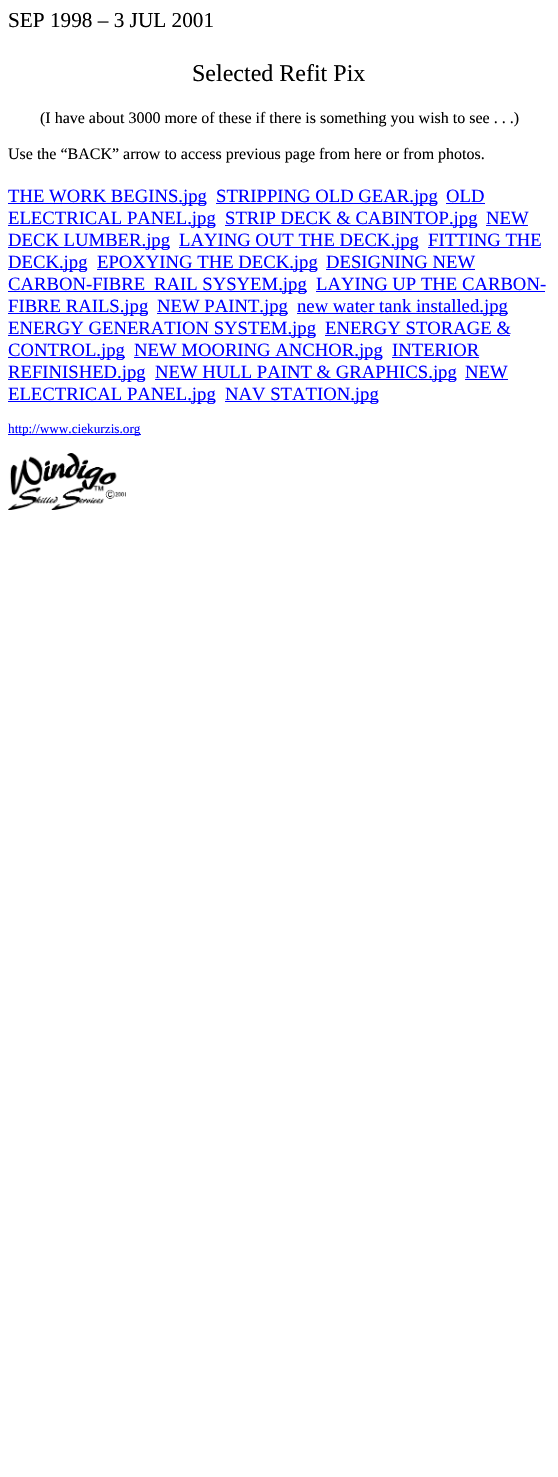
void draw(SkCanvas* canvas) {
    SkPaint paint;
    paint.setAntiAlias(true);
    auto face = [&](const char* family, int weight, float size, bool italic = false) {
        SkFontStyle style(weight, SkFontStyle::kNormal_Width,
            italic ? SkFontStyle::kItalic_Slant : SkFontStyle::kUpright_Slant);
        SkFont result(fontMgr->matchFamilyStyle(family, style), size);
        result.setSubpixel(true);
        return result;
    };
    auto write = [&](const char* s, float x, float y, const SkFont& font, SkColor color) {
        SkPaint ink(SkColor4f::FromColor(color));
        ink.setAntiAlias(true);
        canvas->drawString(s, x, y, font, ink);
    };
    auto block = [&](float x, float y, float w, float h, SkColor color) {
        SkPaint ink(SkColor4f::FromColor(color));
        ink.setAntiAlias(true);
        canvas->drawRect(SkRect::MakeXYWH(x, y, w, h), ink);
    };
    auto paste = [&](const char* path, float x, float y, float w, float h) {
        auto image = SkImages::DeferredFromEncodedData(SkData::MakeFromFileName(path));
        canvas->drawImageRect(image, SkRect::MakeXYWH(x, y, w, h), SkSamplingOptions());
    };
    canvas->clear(SK_ColorWHITE);
    auto kFont1 = face("Liberation Serif", 400, 21.25f);
    write("SEP 1998 – 3 JUL 2001", 8, 27, kFont1, SK_ColorBLACK);
    auto kFont2 = face("Liberation Serif", 400, 24);
    write("Selected Refit Pix", 192, 81, kFont2, SK_ColorBLACK);
    auto kFont3 = face("Liberation Serif", 400, 16);
    write("(I have about 3000 more of these if there is something you wish to see . . .)", 40, 123, kFont3, SK_ColorBLACK);
    write("Use the “BACK” arrow to access previous page from here or from photos.", 8, 159, kFont3, SK_ColorBLACK);
    block(8, 203, 198, 1, SkColorSetRGB(0, 0, 255));
    auto kFont4 = face("Liberation Serif", 400, 18.7f);
    write("THE WORK BEGINS.jpg", 8, 202, kFont4, SkColorSetRGB(0, 0, 255));
    block(216, 203, 221, 1, SkColorSetRGB(0, 0, 255));
    write("STRIPPING OLD GEAR.jpg", 216, 202, kFont4, SkColorSetRGB(0, 0, 255));
    write("OLD", 446, 202, kFont4, SkColorSetRGB(0, 0, 255));
    block(446, 203, 39, 1, SkColorSetRGB(0, 0, 255));
    block(8, 225, 207, 1, SkColorSetRGB(0, 0, 255));
    write("ELECTRICAL PANEL.jpg", 8, 224, kFont4, SkColorSetRGB(0, 0, 255));
    block(225, 225, 252, 1, SkColorSetRGB(0, 0, 255));
    write("STRIP DECK & CABINTOP.jpg", 225, 224, kFont4, SkColorSetRGB(0, 0, 255));
    write("NEW", 486, 224, kFont4, SkColorSetRGB(0, 0, 255));
    block(486, 225, 42, 1, SkColorSetRGB(0, 0, 255));
    block(8, 247, 162, 1, SkColorSetRGB(0, 0, 255));
    write("DECK LUMBER.jpg", 8, 246, kFont4, SkColorSetRGB(0, 0, 255));
    block(179, 247, 239, 1, SkColorSetRGB(0, 0, 255));
    write("LAYING OUT THE DECK.jpg", 179, 246, kFont4, SkColorSetRGB(0, 0, 255));
    write("FITTING THE", 428, 246, kFont4, SkColorSetRGB(0, 0, 255));
    block(428, 247, 113, 1, SkColorSetRGB(0, 0, 255));
    block(8, 269, 79, 1, SkColorSetRGB(0, 0, 255));
    write("DECK.jpg", 8, 268, kFont4, SkColorSetRGB(0, 0, 255));
    block(97, 269, 220, 1, SkColorSetRGB(0, 0, 255));
    write("EPOXYING THE DECK.jpg", 97, 268, kFont4, SkColorSetRGB(0, 0, 255));
    write("DESIGNING NEW", 326, 268, kFont4, SkColorSetRGB(0, 0, 255));
    block(326, 269, 149, 1, SkColorSetRGB(0, 0, 255));
    write("CARBON-FIBRE", 8, 290, kFont4, SkColorSetRGB(0, 0, 255));
    block(8, 291, 299, 1, SkColorSetRGB(0, 0, 255));
    write("RAIL SYSYEM.jpg", 154, 290, kFont4, SkColorSetRGB(0, 0, 255));
    write("LAYING UP THE CARBON-", 316, 290, kFont4, SkColorSetRGB(0, 0, 255));
    block(316, 291, 229, 1, SkColorSetRGB(0, 0, 255));
    block(8, 313, 140, 1, SkColorSetRGB(0, 0, 255));
    write("FIBRE RAILS.jpg", 8, 312, kFont4, SkColorSetRGB(0, 0, 255));
    block(157, 313, 131, 1, SkColorSetRGB(0, 0, 255));
    write("NEW PAINT.jpg", 157, 312, kFont4, SkColorSetRGB(0, 0, 255));
    block(297, 313, 211, 1, SkColorSetRGB(0, 0, 255));
    write("new water tank installed.jpg", 297, 312, kFont4, SkColorSetRGB(0, 0, 255));
    block(8, 335, 307, 1, SkColorSetRGB(0, 0, 255));
    write("ENERGY GENERATION SYSTEM.jpg", 8, 334, kFont4, SkColorSetRGB(0, 0, 255));
    write("ENERGY STORAGE &", 325, 334, kFont4, SkColorSetRGB(0, 0, 255));
    block(325, 335, 185, 1, SkColorSetRGB(0, 0, 255));
    block(8, 357, 117, 1, SkColorSetRGB(0, 0, 255));
    write("CONTROL.jpg", 8, 356, kFont4, SkColorSetRGB(0, 0, 255));
    block(134, 357, 248, 1, SkColorSetRGB(0, 0, 255));
    write("NEW MOORING ANCHOR.jpg", 134, 356, kFont4, SkColorSetRGB(0, 0, 255));
    write("INTERIOR", 392, 356, kFont4, SkColorSetRGB(0, 0, 255));
    block(392, 357, 87, 1, SkColorSetRGB(0, 0, 255));
    block(8, 379, 137, 1, SkColorSetRGB(0, 0, 255));
    write("REFINISHED.jpg", 8, 378, kFont4, SkColorSetRGB(0, 0, 255));
    block(155, 379, 301, 1, SkColorSetRGB(0, 0, 255));
    write("NEW HULL PAINT & GRAPHICS.jpg", 155, 378, kFont4, SkColorSetRGB(0, 0, 255));
    write("NEW", 465, 378, kFont4, SkColorSetRGB(0, 0, 255));
    block(465, 379, 43, 1, SkColorSetRGB(0, 0, 255));
    block(8, 401, 207, 1, SkColorSetRGB(0, 0, 255));
    write("ELECTRICAL PANEL.jpg", 8, 400, kFont4, SkColorSetRGB(0, 0, 255));
    block(225, 401, 153, 1, SkColorSetRGB(0, 0, 255));
    write("NAV STATION.jpg", 225, 400, kFont4, SkColorSetRGB(0, 0, 255));
    block(8, 434, 133, 1, SkColorSetRGB(0, 0, 255));
    auto kFont5 = face("Liberation Serif", 400, 13.25f);
    write("http://www.ciekurzis.org", 8, 433, kFont5, SkColorSetRGB(0, 0, 255));
    paste("pic1.png", 8, 453, 118, 57);
}
